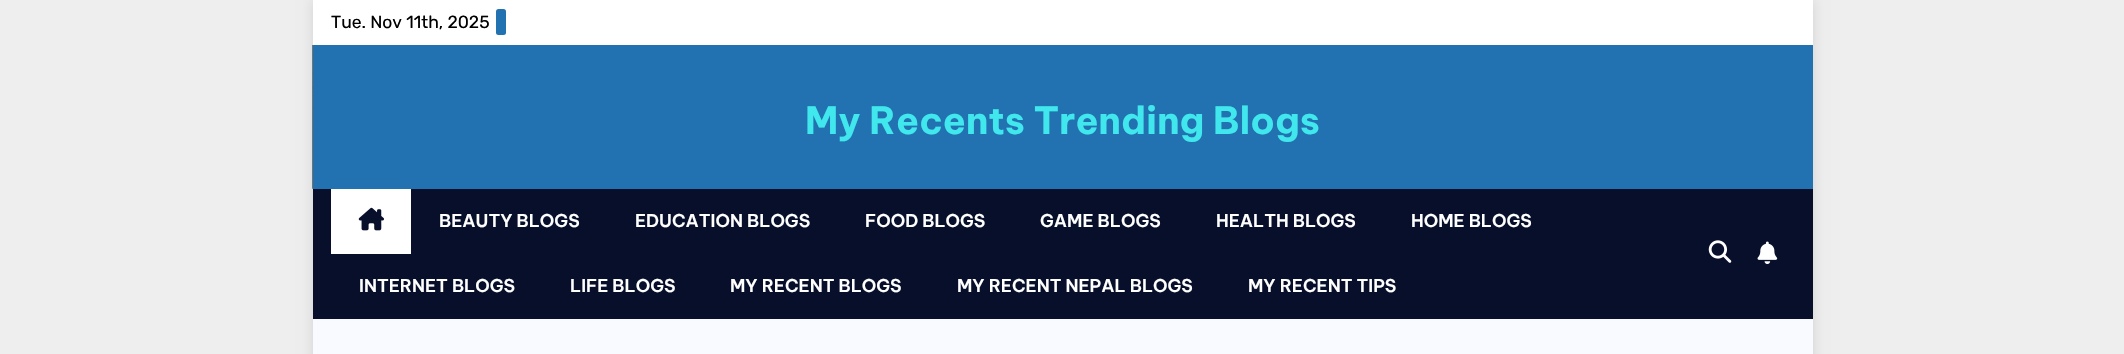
void draw(SkCanvas* canvas) {
    SkPaint paint;
    paint.setAntiAlias(true);
    auto face = [&](const char* family, int weight, float size, bool italic = false) {
        SkFontStyle style(weight, SkFontStyle::kNormal_Width,
            italic ? SkFontStyle::kItalic_Slant : SkFontStyle::kUpright_Slant);
        SkFont result(fontMgr->matchFamilyStyle(family, style), size);
        result.setSubpixel(true);
        return result;
    };
    auto write = [&](const char* s, float x, float y, const SkFont& font, SkColor color) {
        SkPaint ink(SkColor4f::FromColor(color));
        ink.setAntiAlias(true);
        canvas->drawString(s, x, y, font, ink);
    };
    auto block = [&](float x, float y, float w, float h, SkColor color) {
        SkPaint ink(SkColor4f::FromColor(color));
        ink.setAntiAlias(true);
        canvas->drawRect(SkRect::MakeXYWH(x, y, w, h), ink);
    };
    auto card = [&](float x, float y, float w, float h, float radius, SkColor color) {
        SkPaint ink(SkColor4f::FromColor(color));
        ink.setAntiAlias(true);
        canvas->drawRoundRect(SkRect::MakeXYWH(x, y, w, h), radius, radius, ink);
    };
    auto paste = [&](const char* path, float x, float y, float w, float h) {
        auto image = SkImages::DeferredFromEncodedData(SkData::MakeFromFileName(path));
        canvas->drawImageRect(image, SkRect::MakeXYWH(x, y, w, h), SkSamplingOptions());
    };
    canvas->clear(SkColorSetRGB(238, 238, 238));
    paint.setColor(SkColorSetARGB(31, 0, 0, 0));
    paint.setMaskFilter(SkMaskFilter::MakeBlur(kNormal_SkBlurStyle, 6));
    canvas->drawRect(SkRect::MakeXYWH(313, 0, 1500, 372), paint);
    paint.setMaskFilter(nullptr);
    block(313, 319, 1500, 35, SkColorSetRGB(249, 250, 255));
    block(313, 0, 1500, 45, SK_ColorWHITE);
    auto kFont1 = face("Rubik", 400, 17.5f);
    write("Tue. Nov 11th, 2025", 331, 28, kFont1, SK_ColorBLACK);
    card(496, 9, 10, 26, 2.5f, SkColorSetRGB(34, 113, 177));
    paste("pic1.png", 312, 45, 1, 144);
    block(313, 45, 1500, 144, SkColorSetRGB(34, 113, 177));
    auto kFont2 = face("Be Vietnam Pro", 700, 37.5f);
    write("My Recents Trending Blogs", 805, 134, kFont2, SkColorSetRGB(64, 231, 237));
    block(313, 189, 1500, 130, SkColorSetRGB(7, 15, 43));
    block(331, 189, 80, 65, SK_ColorWHITE);
    paste("pic2.png", 358, 207, 26, 24);
    auto kFont3 = face("Be Vietnam Pro", 600, 17.5f);
    write("BEAUTY BLOGS", 439, 227, kFont3, SK_ColorWHITE);
    write("EDUCATION BLOGS", 635, 227, kFont3, SK_ColorWHITE);
    write("FOOD BLOGS", 865, 227, kFont3, SK_ColorWHITE);
    write("GAME BLOGS", 1040, 227, kFont3, SK_ColorWHITE);
    write("HEALTH BLOGS", 1216, 227, kFont3, SK_ColorWHITE);
    write("HOME BLOGS", 1411, 227, kFont3, SK_ColorWHITE);
    write("INTERNET BLOGS", 359, 292, kFont3, SK_ColorWHITE);
    write("LIFE BLOGS", 570, 292, kFont3, SK_ColorWHITE);
    write("MY RECENT BLOGS", 730, 292, kFont3, SK_ColorWHITE);
    write("MY RECENT NEPAL BLOGS", 957, 292, kFont3, SK_ColorWHITE);
    write("MY RECENT TIPS", 1248, 292, kFont3, SK_ColorWHITE);
    paste("pic3.png", 1708, 240, 24, 23);
    paste("pic4.png", 1757, 241, 21, 23);
}
